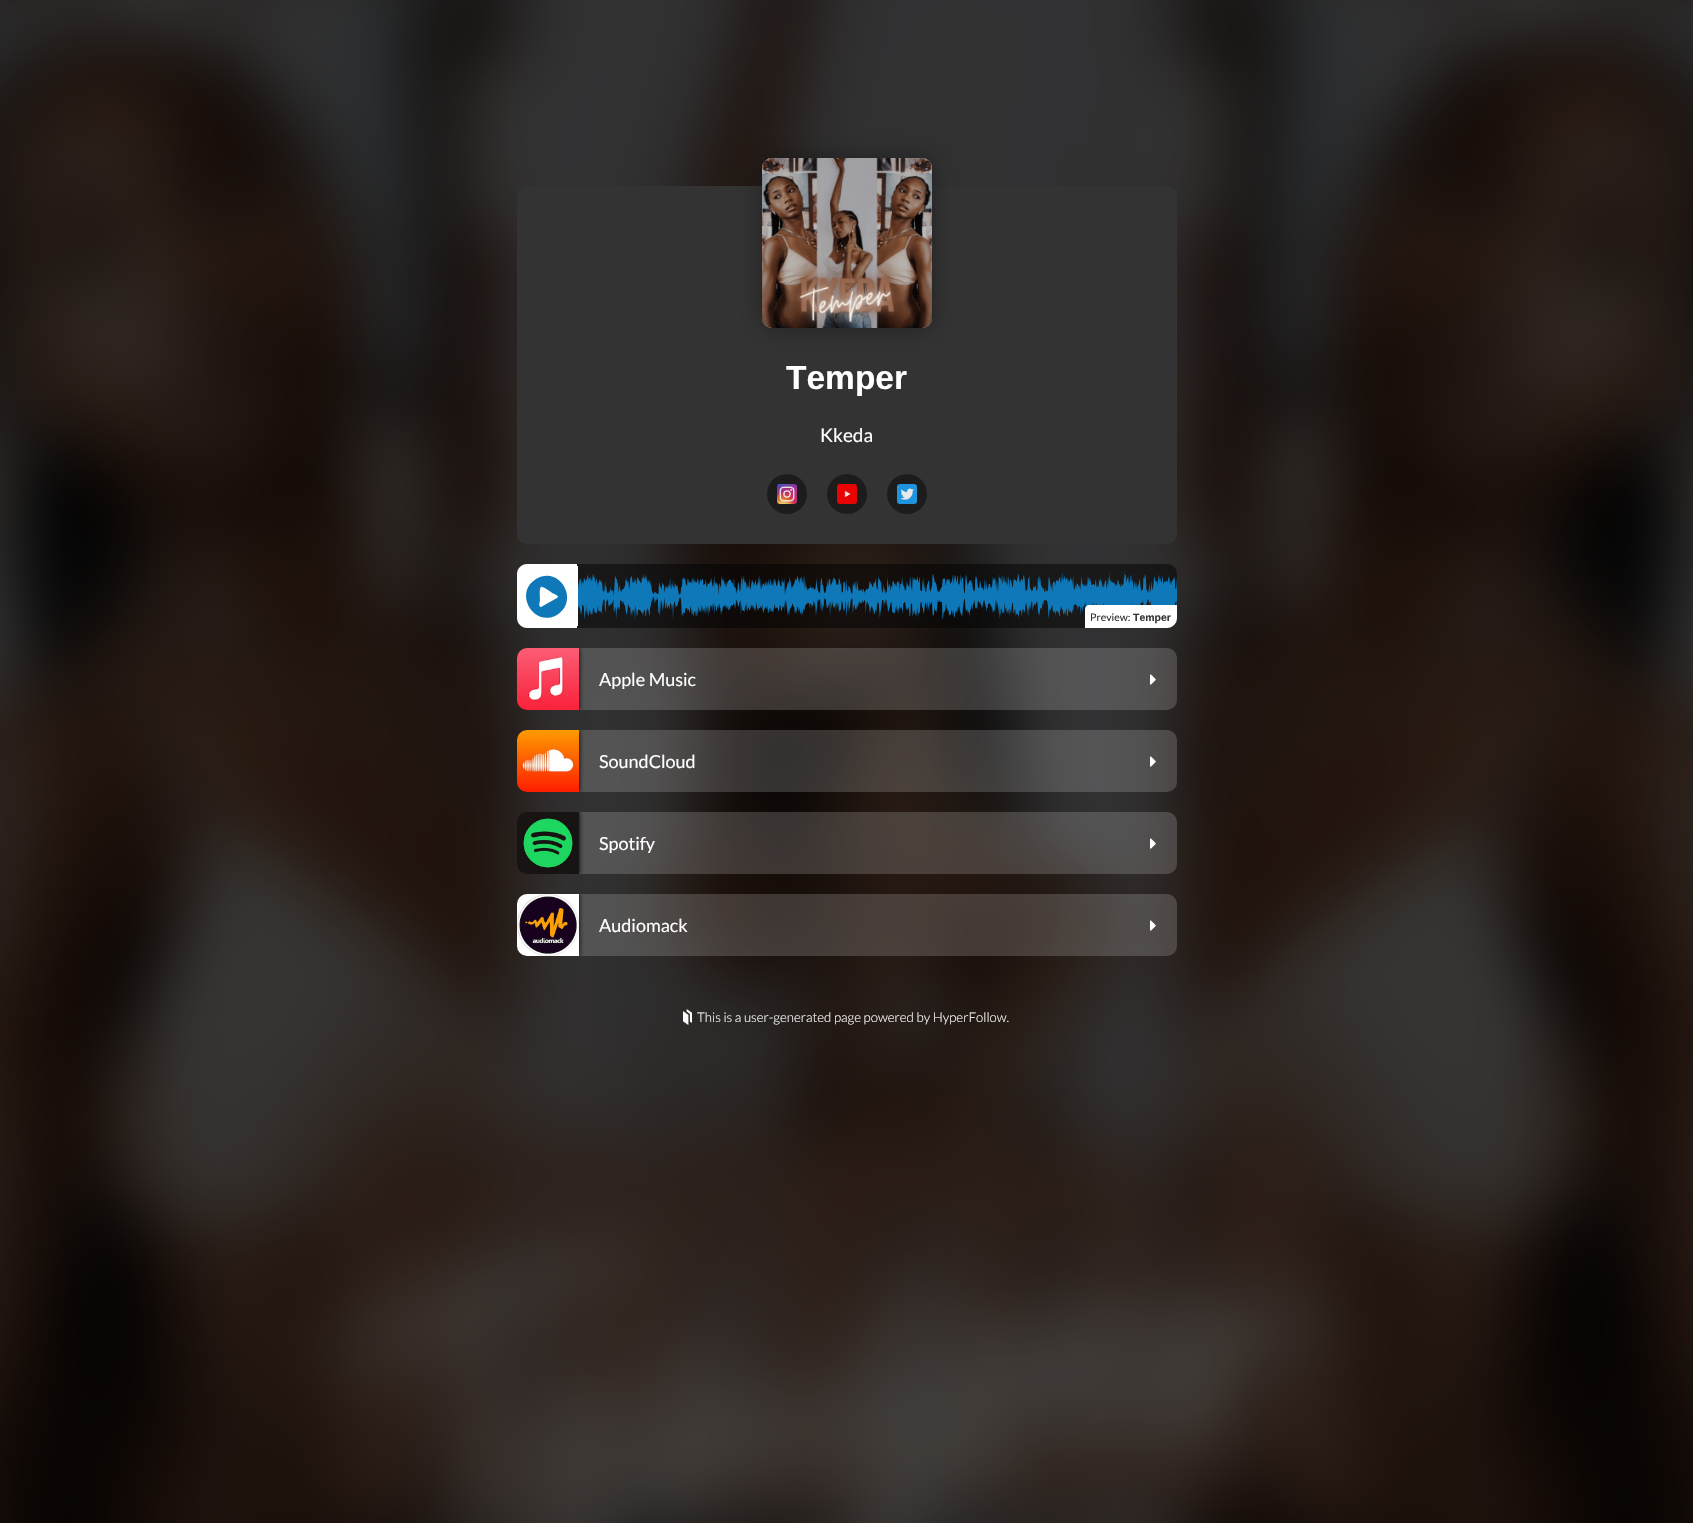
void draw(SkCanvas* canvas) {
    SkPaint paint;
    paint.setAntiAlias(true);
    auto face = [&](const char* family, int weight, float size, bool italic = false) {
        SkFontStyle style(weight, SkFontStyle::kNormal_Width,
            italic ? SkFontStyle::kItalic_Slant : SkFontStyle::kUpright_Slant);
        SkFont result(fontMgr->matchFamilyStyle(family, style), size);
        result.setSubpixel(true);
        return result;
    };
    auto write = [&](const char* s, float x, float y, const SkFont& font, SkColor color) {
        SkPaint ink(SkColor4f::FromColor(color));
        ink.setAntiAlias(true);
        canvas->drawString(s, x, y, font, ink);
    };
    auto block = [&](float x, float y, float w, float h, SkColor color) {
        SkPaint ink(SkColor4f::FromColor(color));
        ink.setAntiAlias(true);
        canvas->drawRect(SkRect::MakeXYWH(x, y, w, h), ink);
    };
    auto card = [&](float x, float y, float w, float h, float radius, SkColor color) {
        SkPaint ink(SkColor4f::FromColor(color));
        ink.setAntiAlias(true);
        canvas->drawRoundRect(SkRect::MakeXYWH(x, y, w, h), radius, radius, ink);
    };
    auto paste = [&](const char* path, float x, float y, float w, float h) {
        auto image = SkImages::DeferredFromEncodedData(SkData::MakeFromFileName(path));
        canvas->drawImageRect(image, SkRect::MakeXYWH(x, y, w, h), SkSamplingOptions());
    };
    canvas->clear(SK_ColorBLACK);
    paste("pic1.png", 0, 0, 1693, 1523);
    card(517, 186, 660, 358, 10, SkColorSetRGB(51, 51, 51));
    paint.setColor(SkColorSetARGB(89, 0, 0, 0));
    paint.setMaskFilter(SkMaskFilter::MakeBlur(kNormal_SkBlurStyle, 12.5f));
    canvas->drawRoundRect(SkRect::MakeXYWH(762, 158, 170, 170), 10, 10, paint);
    paint.setMaskFilter(nullptr);
    card(762, 158, 170, 170, 10, SkColorSetRGB(204, 204, 204));
    paste("pic2.png", 762, 158, 170, 170);
    auto kFont1 = face("Liberation Sans", 700, 33.5f);
    write("Temper", 786, 389, kFont1, SK_ColorWHITE);
    auto kFont2 = face("Lato", 400, 19);
    write("Kkeda", 820, 442, kFont2, SK_ColorWHITE);
    paint.setColor(SkColorSetRGB(28, 28, 28));
    canvas->drawCircle(787, 494, 20, paint);
    paste("pic3.png", 777, 484, 20, 20);
    canvas->drawCircle(847, 494, 20, paint);
    paste("pic4.png", 837, 484, 20, 20);
    canvas->drawCircle(907, 494, 20, paint);
    paste("pic5.png", 897, 484, 20, 20);
    paint.setColor(SK_ColorWHITE);
    canvas->drawPath(SkPathBuilder().moveTo(527, 564).lineTo(577, 564).lineTo(577, 628).lineTo(527, 628).cubicTo(521.5f, 628, 517, 623.5f, 517, 618).lineTo(517, 574).cubicTo(517, 568.5f, 521.5f, 564, 527, 564).close().detach(), paint);
    paint.setColor(SkColorSetRGB(15, 120, 184));
    canvas->drawPath(SkPathBuilder().moveTo(536, 579).cubicTo(560, 565, 580, 601, 557, 615).cubicTo(534, 628, 513, 593, 536, 579).close().moveTo(557, 598).cubicTo(561, 596, 552, 593, 552, 593).cubicTo(550, 591, 542, 586, 541, 587).cubicTo(539, 588, 540, 598, 540, 600).cubicTo(540, 601, 538, 607, 541, 607).close().detach(), paint);
    paint.setColor(SkColorSetARGB(128, 0, 0, 0));
    canvas->drawPath(SkPathBuilder().moveTo(577, 564).lineTo(1167, 564).cubicTo(1172.5f, 564, 1177, 568.5f, 1177, 574).lineTo(1177, 618).cubicTo(1177, 623.5f, 1172.5f, 628, 1167, 628).lineTo(577, 628).close().detach(), paint);
    block(577, 566, 1, 60, SK_ColorWHITE);
    paste("pic6.png", 578, 571, 599, 50);
    paint.setColor(SK_ColorWHITE);
    canvas->drawPath(SkPathBuilder().moveTo(1089, 605).lineTo(1177, 605).lineTo(1177, 618).cubicTo(1177, 623.5f, 1172.5f, 628, 1167, 628).lineTo(1085, 628).lineTo(1085, 609).cubicTo(1085, 607, 1087, 605, 1089, 605).close().detach(), paint);
    auto kFont3 = face("Lato", 400, 10.5f);
    write("Preview:", 1090, 621, kFont3, SkColorSetRGB(51, 51, 51));
    auto kFont4 = face("Liberation Sans", 700, 10.5f);
    write("Temper", 1133, 621, kFont4, SkColorSetRGB(51, 51, 51));
    card(517, 648, 660, 62, 10, SkColorSetARGB(43, 255, 255, 255));
    canvas->save();
    canvas->clipPath(SkPathBuilder().moveTo(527, 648).lineTo(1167, 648).cubicTo(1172.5f, 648, 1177, 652.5f, 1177, 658).lineTo(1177, 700).cubicTo(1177, 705.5f, 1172.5f, 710, 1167, 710).lineTo(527, 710).cubicTo(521.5f, 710, 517, 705.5f, 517, 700).lineTo(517, 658).cubicTo(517, 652.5f, 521.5f, 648, 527, 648).close().detach(), true);
    paint.setColor(SK_ColorBLACK);
    paint.setMaskFilter(SkMaskFilter::MakeBlur(kNormal_SkBlurStyle, 2.5f));
    canvas->drawRect(SkRect::MakeXYWH(517, 648, 62, 62), paint);
    paint.setMaskFilter(nullptr);
    canvas->restore();
    paste("pic7.png", 517, 648, 62, 62);
    auto kFont5 = face("Lato", 400, 18);
    write("Apple Music", 599, 686, kFont5, SK_ColorWHITE);
    paste("pic8.png", 1150, 674, 6, 11);
    card(517, 730, 660, 62, 10, SkColorSetARGB(43, 255, 255, 255));
    canvas->save();
    canvas->clipPath(SkPathBuilder().moveTo(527, 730).lineTo(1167, 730).cubicTo(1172.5f, 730, 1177, 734.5f, 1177, 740).lineTo(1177, 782).cubicTo(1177, 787.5f, 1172.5f, 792, 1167, 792).lineTo(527, 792).cubicTo(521.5f, 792, 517, 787.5f, 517, 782).lineTo(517, 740).cubicTo(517, 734.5f, 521.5f, 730, 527, 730).close().detach(), true);
    paint.setMaskFilter(SkMaskFilter::MakeBlur(kNormal_SkBlurStyle, 2.5f));
    canvas->drawRect(SkRect::MakeXYWH(517, 730, 62, 62), paint);
    paint.setMaskFilter(nullptr);
    canvas->restore();
    paste("pic9.png", 517, 730, 62, 62);
    write("SoundCloud", 599, 768, kFont5, SK_ColorWHITE);
    paste("pic10.png", 1150, 756, 6, 11);
    card(517, 812, 660, 62, 10, SkColorSetARGB(43, 255, 255, 255));
    canvas->save();
    canvas->clipPath(SkPathBuilder().moveTo(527, 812).lineTo(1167, 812).cubicTo(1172.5f, 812, 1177, 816.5f, 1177, 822).lineTo(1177, 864).cubicTo(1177, 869.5f, 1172.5f, 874, 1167, 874).lineTo(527, 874).cubicTo(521.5f, 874, 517, 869.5f, 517, 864).lineTo(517, 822).cubicTo(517, 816.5f, 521.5f, 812, 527, 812).close().detach(), true);
    paint.setMaskFilter(SkMaskFilter::MakeBlur(kNormal_SkBlurStyle, 2.5f));
    canvas->drawRect(SkRect::MakeXYWH(517, 812, 62, 62), paint);
    paint.setMaskFilter(nullptr);
    canvas->restore();
    paste("pic11.png", 517, 812, 62, 62);
    write("Spotify", 599, 850, kFont5, SK_ColorWHITE);
    paste("pic12.png", 1150, 838, 6, 11);
    card(517, 894, 660, 62, 10, SkColorSetARGB(43, 255, 255, 255));
    canvas->save();
    canvas->clipPath(SkPathBuilder().moveTo(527, 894).lineTo(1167, 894).cubicTo(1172.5f, 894, 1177, 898.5f, 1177, 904).lineTo(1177, 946).cubicTo(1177, 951.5f, 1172.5f, 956, 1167, 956).lineTo(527, 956).cubicTo(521.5f, 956, 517, 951.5f, 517, 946).lineTo(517, 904).cubicTo(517, 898.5f, 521.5f, 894, 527, 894).close().detach(), true);
    paint.setMaskFilter(SkMaskFilter::MakeBlur(kNormal_SkBlurStyle, 2.5f));
    canvas->drawRect(SkRect::MakeXYWH(517, 894, 62, 62), paint);
    paint.setMaskFilter(nullptr);
    canvas->restore();
    paste("pic13.png", 517, 894, 62, 62);
    write("Audiomack", 599, 932, kFont5, SK_ColorWHITE);
    paste("pic14.png", 1150, 920, 6, 11);
    paste("pic15.png", 683, 1009, 9, 16);
    auto kFont6 = face("Lato", 300, 13.3f);
    write("This is a user-generated page powered by HyperFollow.", 697, 1022, kFont6, SK_ColorWHITE);
}
